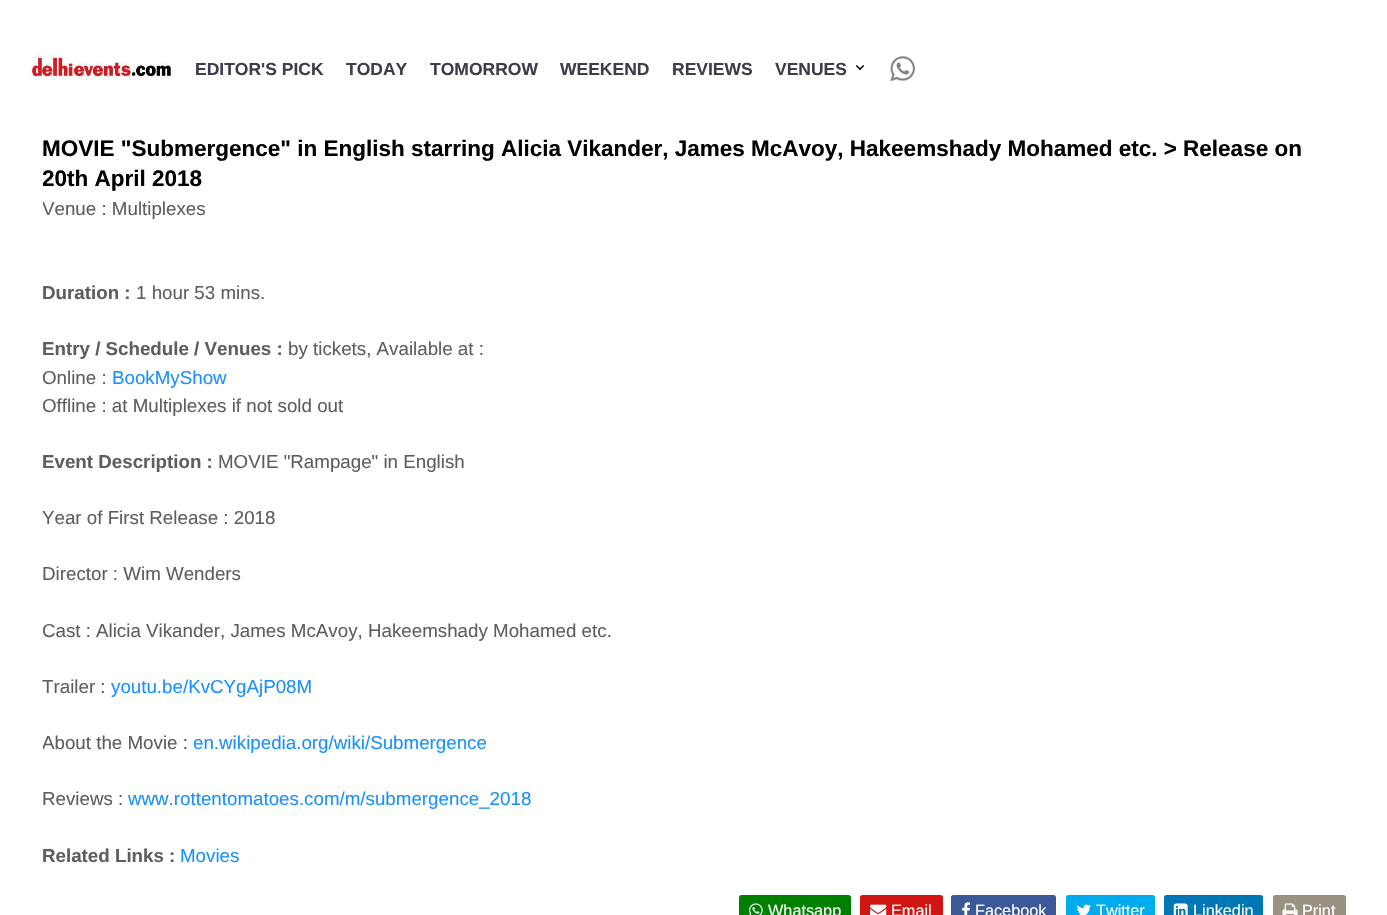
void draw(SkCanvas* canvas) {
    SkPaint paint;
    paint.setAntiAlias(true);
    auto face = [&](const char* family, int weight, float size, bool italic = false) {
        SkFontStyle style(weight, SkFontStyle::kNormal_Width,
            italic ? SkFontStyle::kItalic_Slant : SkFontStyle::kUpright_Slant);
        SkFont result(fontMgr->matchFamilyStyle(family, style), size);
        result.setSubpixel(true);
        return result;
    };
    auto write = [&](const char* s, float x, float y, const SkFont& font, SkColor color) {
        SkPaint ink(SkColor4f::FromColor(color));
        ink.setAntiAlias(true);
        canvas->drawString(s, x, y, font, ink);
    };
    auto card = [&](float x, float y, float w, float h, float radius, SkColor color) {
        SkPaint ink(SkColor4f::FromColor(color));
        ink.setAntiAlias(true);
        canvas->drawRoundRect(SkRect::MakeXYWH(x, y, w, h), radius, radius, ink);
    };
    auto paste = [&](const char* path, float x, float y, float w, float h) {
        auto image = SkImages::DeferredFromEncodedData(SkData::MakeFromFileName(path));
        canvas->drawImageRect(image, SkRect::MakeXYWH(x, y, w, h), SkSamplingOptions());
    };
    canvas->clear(SK_ColorWHITE);
    paste("pic1.png", 31, 54, 140, 34);
    auto kFont1 = face("Liberation Sans", 700, 17.5f);
    write("EDITOR'S PICK", 195, 75, kFont1, SkColorSetRGB(63, 60, 75));
    write("TODAY", 346, 75, kFont1, SkColorSetRGB(63, 60, 75));
    write("TOMORROW", 430, 75, kFont1, SkColorSetRGB(63, 60, 75));
    write("WEEKEND", 560, 75, kFont1, SkColorSetRGB(63, 60, 75));
    write("REVIEWS", 672, 75, kFont1, SkColorSetRGB(63, 60, 75));
    write("VENUES", 775, 75, kFont1, SkColorSetRGB(63, 60, 75));
    paste("pic2.png", 855, 65, 10, 6);
    paste("pic3.png", 890, 56, 25, 26);
    auto kFont2 = face("Liberation Sans", 700, 22.5f);
    write("MOVIE \"Submergence\" in English starring Alicia Vikander, James McAvoy, Hakeemshady Mohamed etc. > Release on", 42, 156, kFont2, SkColorSetRGB(1, 1, 1));
    canvas->save();
    canvas->clipRect(SkRect::MakeXYWH(43, 116, 1303, 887));
    write("20th April 2018", 42, 186, kFont2, SkColorSetRGB(1, 1, 1));
    canvas->restore();
    canvas->save();
    canvas->clipRect(SkRect::MakeXYWH(43, 195, 1303, 675));
    auto kFont3 = face("Liberation Sans", 400, 18.75f);
    write("Venue : Multiplexes", 42, 215, kFont3, SkColorSetRGB(94, 94, 94));
    canvas->restore();
    auto kFont4 = face("Liberation Sans", 700, 18.75f);
    write("Duration :", 42, 299, kFont4, SkColorSetRGB(94, 94, 94));
    write("1 hour 53 mins.", 136, 299, kFont3, SkColorSetRGB(94, 94, 94));
    write("Entry / Schedule / Venues :", 42, 355, kFont4, SkColorSetRGB(94, 94, 94));
    write("by tickets, Available at :", 288, 355, kFont3, SkColorSetRGB(94, 94, 94));
    canvas->save();
    canvas->clipRect(SkRect::MakeXYWH(43, 195, 1303, 675));
    write("Online :", 42, 384, kFont3, SkColorSetRGB(94, 94, 94));
    canvas->restore();
    write("BookMyShow", 112, 384, kFont3, SkColorSetRGB(26, 144, 255));
    canvas->save();
    canvas->clipRect(SkRect::MakeXYWH(43, 195, 1303, 675));
    write("Offline : at Multiplexes if not sold out", 42, 412, kFont3, SkColorSetRGB(94, 94, 94));
    canvas->restore();
    write("Event Description :", 42, 468, kFont4, SkColorSetRGB(94, 94, 94));
    write("MOVIE \"Rampage\" in English", 218, 468, kFont3, SkColorSetRGB(94, 94, 94));
    write("Year of First Release : 2018", 42, 524, kFont3, SkColorSetRGB(94, 94, 94));
    write("Director : Wim Wenders", 42, 580, kFont3, SkColorSetRGB(94, 94, 94));
    canvas->save();
    canvas->clipRect(SkRect::MakeXYWH(43, 195, 1303, 675));
    write("Cast :", 42, 637, kFont3, SkColorSetRGB(94, 94, 94));
    canvas->restore();
    write("Alicia Vikander, James McAvoy, Hakeemshady Mohamed etc.", 96, 637, kFont3, SkColorSetRGB(94, 94, 94));
    write("Trailer :", 42, 693, kFont3, SkColorSetRGB(94, 94, 94));
    write("youtu.be/KvCYgAjP08M", 111, 693, kFont3, SkColorSetRGB(26, 144, 255));
    canvas->save();
    canvas->clipRect(SkRect::MakeXYWH(43, 195, 1303, 675));
    write("About the Movie :", 42, 749, kFont3, SkColorSetRGB(94, 94, 94));
    canvas->restore();
    write("en.wikipedia.org/wiki/Submergence", 193, 749, kFont3, SkColorSetRGB(26, 144, 255));
    write("Reviews :", 42, 805, kFont3, SkColorSetRGB(94, 94, 94));
    write("www.rottentomatoes.com/m/submergence_2018", 128, 805, kFont3, SkColorSetRGB(26, 144, 255));
    write("Related Links :", 42, 862, kFont4, SkColorSetRGB(94, 94, 94));
    write("Movies", 180, 862, kFont3, SkColorSetRGB(26, 144, 255));
    card(739, 895, 112, 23, 2.5f, SkColorSetRGB(0, 128, 0));
    paste("pic4.png", 749, 903, 14, 12);
    auto kFont5 = face("Liberation Sans", 400, 16.25f);
    write("Whatsapp", 768, 916, kFont5, SK_ColorWHITE);
    card(860, 895, 83, 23, 2.5f, SkColorSetRGB(208, 21, 19));
    paste("pic5.png", 870, 904, 17, 11);
    write("Email", 891, 916, kFont5, SK_ColorWHITE);
    card(951, 895, 105, 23, 2.5f, SkColorSetRGB(59, 89, 152));
    paste("pic6.png", 962, 902, 8, 13);
    write("Facebook", 975, 916, kFont5, SK_ColorWHITE);
    card(1066, 895, 89, 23, 2.5f, SkColorSetRGB(0, 172, 238));
    paste("pic7.png", 1077, 904, 14, 11);
    write("Twitter", 1096, 916, kFont5, SK_ColorWHITE);
    card(1164, 895, 99, 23, 2.5f, SkColorSetRGB(0, 119, 181));
    paste("pic8.png", 1173, 903, 15, 12);
    write("Linkedin", 1193, 916, kFont5, SK_ColorWHITE);
    card(1273, 895, 73, 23, 2.5f, SkColorSetRGB(153, 146, 128));
    paste("pic9.png", 1282, 903, 16, 12);
    write("Print", 1302, 916, kFont5, SK_ColorWHITE);
}
